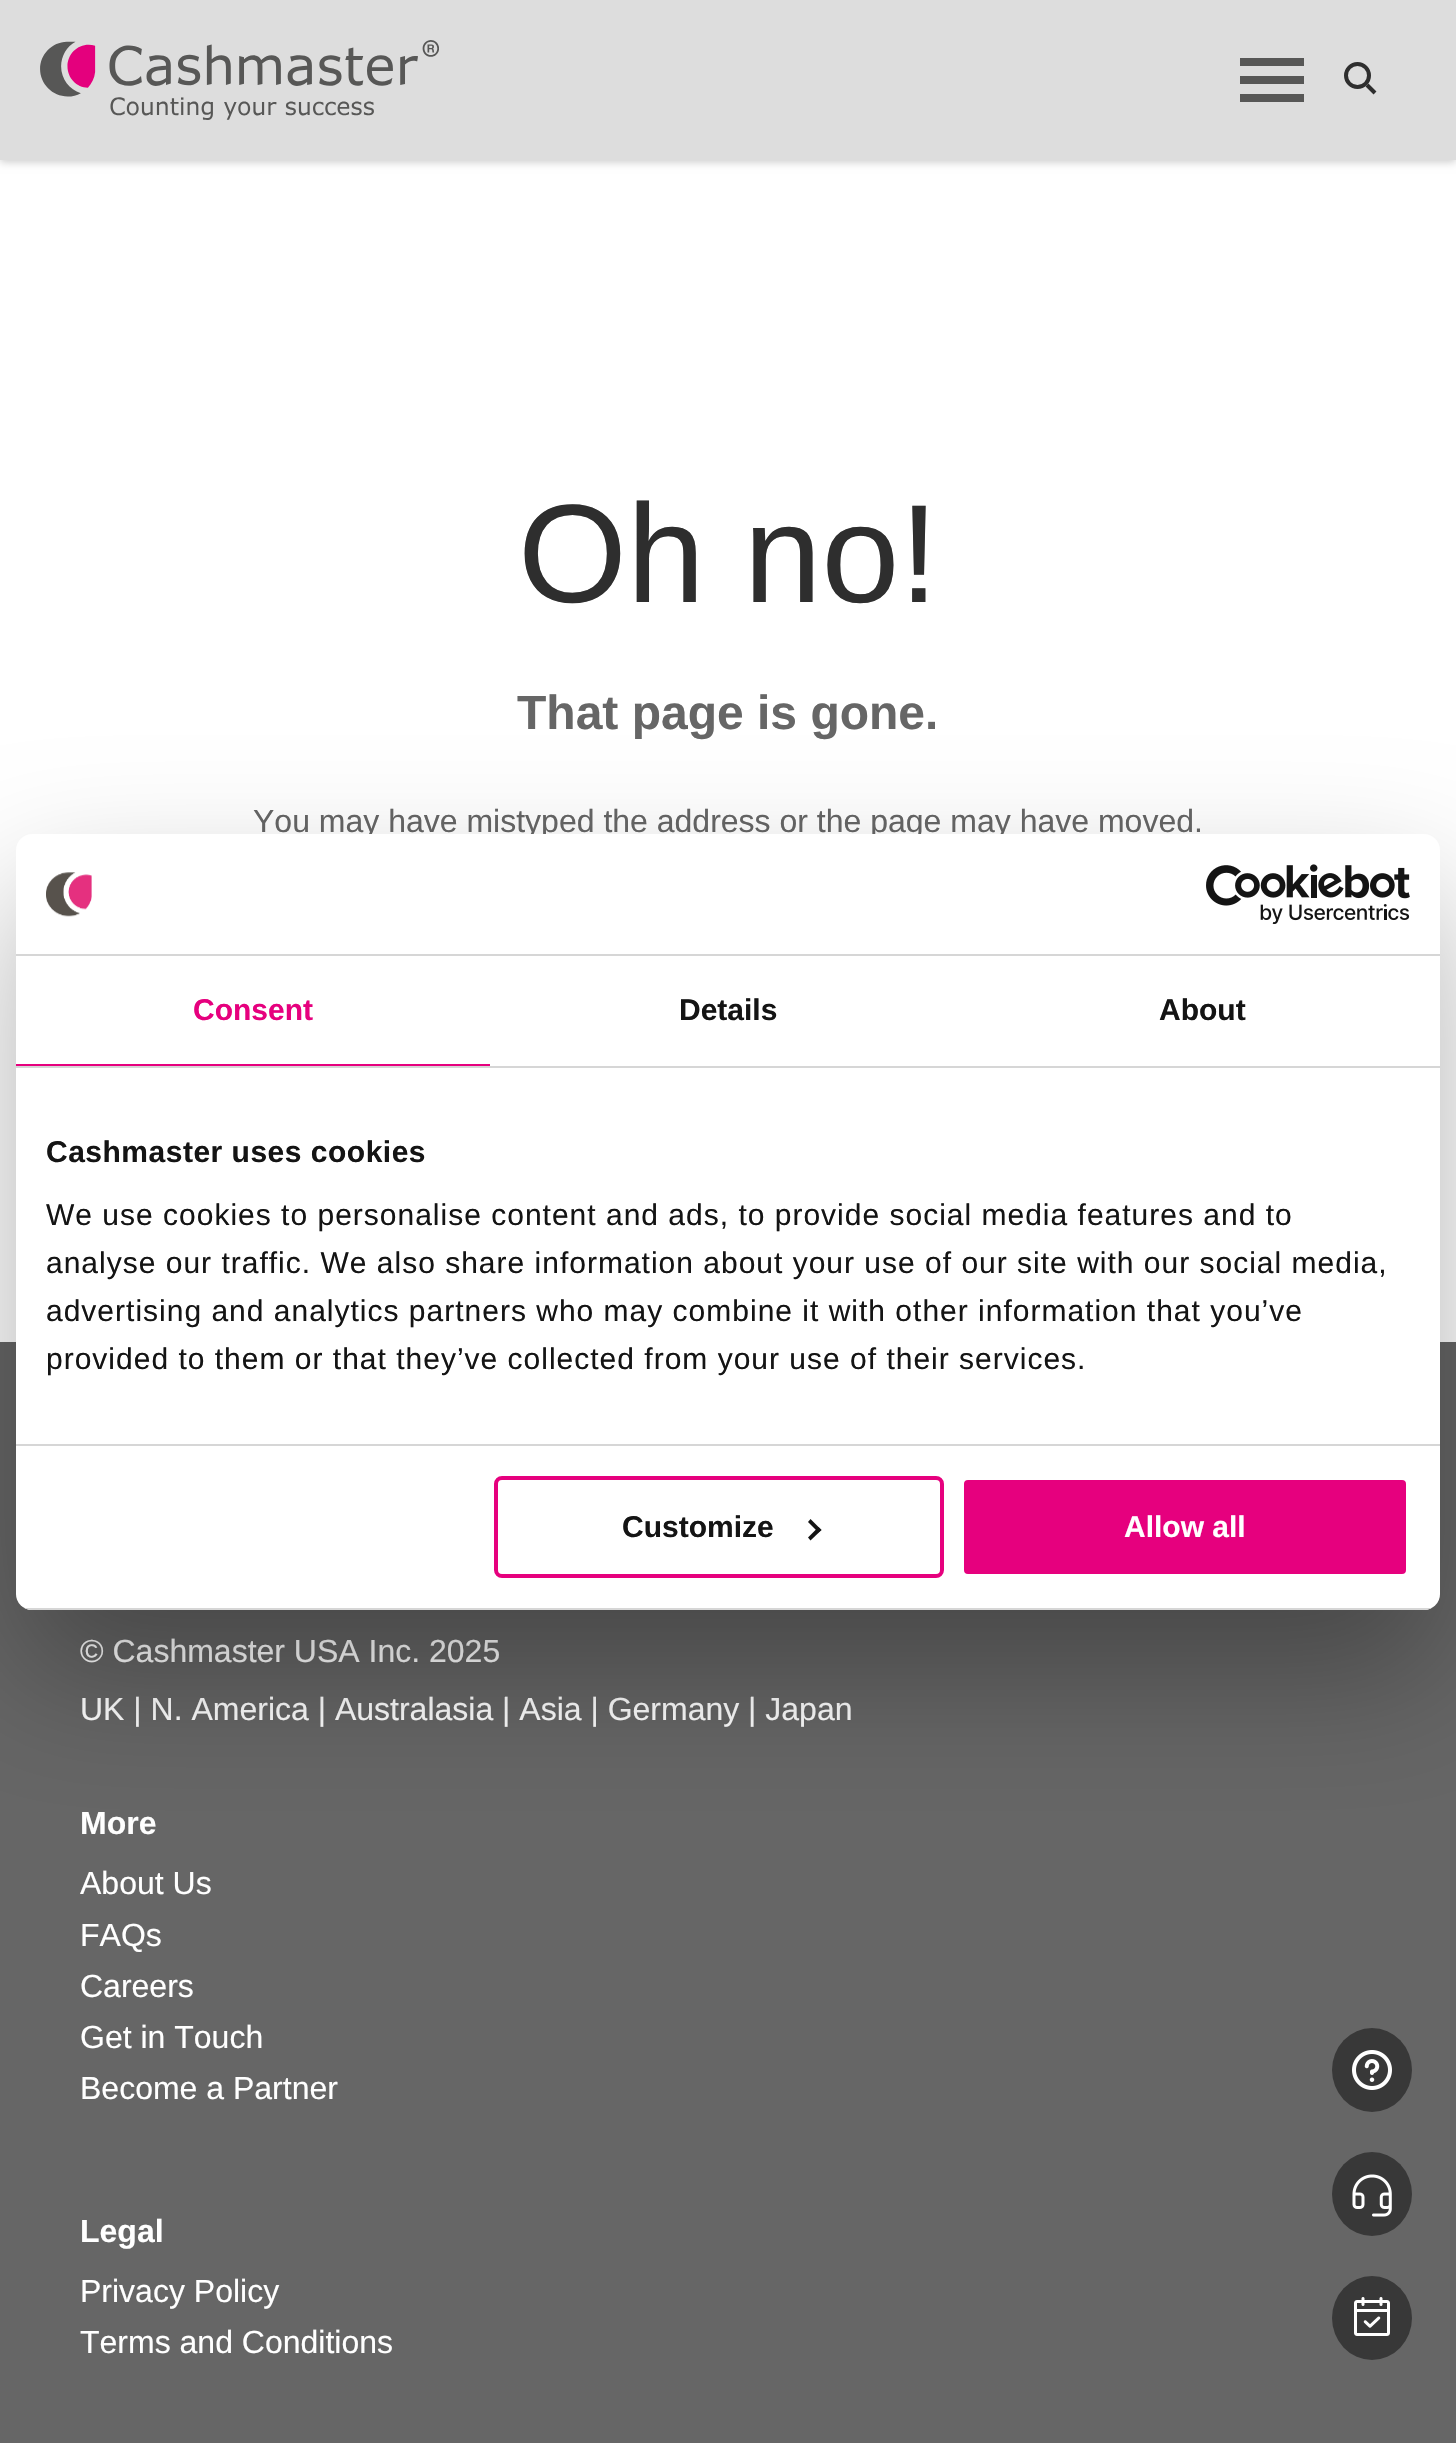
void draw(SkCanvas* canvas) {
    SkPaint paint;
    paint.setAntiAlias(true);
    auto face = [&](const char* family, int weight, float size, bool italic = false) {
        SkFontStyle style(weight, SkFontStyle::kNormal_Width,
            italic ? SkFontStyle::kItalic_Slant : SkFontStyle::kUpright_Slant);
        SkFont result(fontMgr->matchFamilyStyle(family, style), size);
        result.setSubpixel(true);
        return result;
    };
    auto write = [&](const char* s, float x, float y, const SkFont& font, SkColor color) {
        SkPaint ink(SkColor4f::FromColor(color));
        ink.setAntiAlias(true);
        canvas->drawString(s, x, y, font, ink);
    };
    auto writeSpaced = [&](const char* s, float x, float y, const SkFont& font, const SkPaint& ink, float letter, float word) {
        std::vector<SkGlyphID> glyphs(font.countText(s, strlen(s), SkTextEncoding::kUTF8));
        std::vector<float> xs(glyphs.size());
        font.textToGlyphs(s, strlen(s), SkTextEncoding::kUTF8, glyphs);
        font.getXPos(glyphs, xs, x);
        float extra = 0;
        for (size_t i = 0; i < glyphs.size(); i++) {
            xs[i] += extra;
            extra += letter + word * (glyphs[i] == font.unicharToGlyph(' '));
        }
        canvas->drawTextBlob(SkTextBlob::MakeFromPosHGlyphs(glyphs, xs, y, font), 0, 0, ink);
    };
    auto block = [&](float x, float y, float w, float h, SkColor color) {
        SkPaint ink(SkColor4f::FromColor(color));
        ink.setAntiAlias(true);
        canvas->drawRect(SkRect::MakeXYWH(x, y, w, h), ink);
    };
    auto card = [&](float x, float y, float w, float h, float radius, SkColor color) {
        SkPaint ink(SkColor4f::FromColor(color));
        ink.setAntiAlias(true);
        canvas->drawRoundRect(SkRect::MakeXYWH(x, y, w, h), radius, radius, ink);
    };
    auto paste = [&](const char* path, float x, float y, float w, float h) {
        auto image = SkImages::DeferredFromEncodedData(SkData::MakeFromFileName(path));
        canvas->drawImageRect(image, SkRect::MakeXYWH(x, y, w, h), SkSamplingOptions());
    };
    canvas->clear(SK_ColorWHITE);
    paint.setColor(SkColorSetARGB(51, 0, 0, 0));
    paint.setMaskFilter(SkMaskFilter::MakeBlur(kNormal_SkBlurStyle, 4));
    canvas->drawRect(SkRect::MakeXYWH(0, 2, 1456, 160), paint);
    paint.setMaskFilter(nullptr);
    block(0, 0, 1456, 160, SkColorSetRGB(221, 221, 221));
    paste("pic1.png", 40, 40, 399, 80);
    block(1240, 58, 64, 8, SkColorSetRGB(87, 87, 86));
    block(1240, 76, 64, 8, SkColorSetRGB(87, 87, 86));
    block(1240, 94, 64, 8, SkColorSetRGB(87, 87, 86));
    paint.setStyle(SkPaint::kStroke_Style);
    paint.setStrokeWidth(4);
    paint.setColor(SkColorSetRGB(46, 46, 46));
    canvas->drawCircle(1357.5f, 75.5f, 11.5f, paint);
    canvas->drawPath(SkPathBuilder().moveTo(1367, 85).lineTo(1375, 93).detach(), paint);
    auto kFont1 = face("Liberation Sans", 400, 140);
    write("Oh no!", 518, 602, kFont1, SkColorSetRGB(46, 46, 46));
    auto kFont2 = face("Liberation Sans", 700, 48);
    write("That page is gone.", 517, 729, kFont2, SkColorSetRGB(102, 102, 102));
    auto kFont3 = face("Liberation Sans", 400, 32);
    write("You may have mistyped the address or the page may have moved.", 253, 832, kFont3, SkColorSetRGB(102, 102, 102));
    block(0, 1342, 1456, 1101, SkColorSetRGB(102, 102, 102));
    write("© Cashmaster USA Inc. 2025", 80, 1662, kFont3, SK_ColorWHITE);
    write("UK | N. America | Australasia | Asia | Germany | Japan", 80, 1720, kFont3, SK_ColorWHITE);
    auto kFont4 = face("Liberation Sans", 700, 32);
    write("More", 80, 1834, kFont4, SK_ColorWHITE);
    write("About Us", 80, 1894, kFont3, SK_ColorWHITE);
    write("FAQs", 80, 1946, kFont3, SK_ColorWHITE);
    write("Careers", 80, 1997, kFont3, SK_ColorWHITE);
    write("Get in Touch", 80, 2048, kFont3, SK_ColorWHITE);
    write("Become a Partner", 80, 2099, kFont3, SK_ColorWHITE);
    write("Legal", 80, 2242, kFont4, SK_ColorWHITE);
    write("Privacy Policy", 80, 2302, kFont3, SK_ColorWHITE);
    write("Terms and Conditions", 80, 2353, kFont3, SK_ColorWHITE);
    paint.setStyle(SkPaint::kFill_Style);
    paint.setColor(SkColorSetRGB(56, 56, 56));
    canvas->drawOval(SkRect::MakeXYWH(1332, 2028, 80, 84), paint);
    paste("pic2.png", 1352, 2050, 40, 40);
    canvas->drawOval(SkRect::MakeXYWH(1332, 2152, 80, 84), paint);
    paste("pic3.png", 1352, 2174, 40, 43);
    canvas->drawOval(SkRect::MakeXYWH(1332, 2276, 80, 84), paint);
    paste("pic4.png", 1354, 2297, 36, 39);
    paint.setColor(SkColorSetARGB(77, 0, 0, 0));
    paint.setMaskFilter(SkMaskFilter::MakeBlur(kNormal_SkBlurStyle, 68));
    canvas->drawRoundRect(SkRect::MakeXYWH(16, 898, 1424, 776), 16, 16, paint);
    paint.setMaskFilter(nullptr);
    card(16, 834, 1424, 776, 16, SK_ColorWHITE);
    block(16, 954, 1424, 2, SkColorSetRGB(214, 214, 214));
    paste("pic5.png", 46, 872, 46, 45);
    paste("pic6.png", 1206, 864, 204, 60);
    block(16, 1066, 1424, 2, SkColorSetRGB(214, 214, 214));
    block(16, 1064, 474, 2, SkColorSetRGB(230, 0, 126));
    auto kFont5 = face("Liberation Sans", 700, 30);
    write("Consent", 193, 1020, kFont5, SkColorSetRGB(230, 0, 126));
    write("Details", 679, 1020, kFont5, SkColorSetRGB(20, 20, 20));
    write("About", 1159, 1020, kFont5, SkColorSetRGB(20, 20, 20));
    block(16, 1444, 1424, 2, SkColorSetRGB(214, 214, 214));
    paint.setColor(SkColorSetRGB(20, 20, 20));
    writeSpaced("Cashmaster uses cookies", 46, 1162, kFont5, paint, 0.5f, 0);
    auto kFont6 = face("Liberation Sans", 400, 30);
    writeSpaced("We use cookies to personalise content and ads, to provide social media features and to", 46, 1225, kFont6, paint, 1, 0);
    writeSpaced("analyse our traffic. We also share information about your use of our site with our social media,", 46, 1273, kFont6, paint, 1, 0);
    writeSpaced("advertising and analytics partners who may combine it with other information that you’ve", 46, 1321, kFont6, paint, 1, 0);
    writeSpaced("provided to them or that they’ve collected from your use of their services.", 46, 1369, kFont6, paint, 1, 0);
    canvas->save();
    canvas->clipPath(SkPathBuilder().moveTo(32, 834).lineTo(1424, 834).cubicTo(1433, 834, 1440, 841, 1440, 850).lineTo(1440, 1594).cubicTo(1440, 1603, 1433, 1610, 1424, 1610).lineTo(32, 1610).cubicTo(23, 1610, 16, 1603, 16, 1594).lineTo(16, 850).cubicTo(16, 841, 23, 834, 32, 834).close().detach(), true);
    block(16, 1608, 1424, 2, SkColorSetRGB(214, 214, 214));
    canvas->restore();
    paint.setStyle(SkPaint::kStroke_Style);
    paint.setColor(SkColorSetRGB(230, 0, 126));
    canvas->drawRoundRect(SkRect::MakeXYWH(496, 1478, 446, 98), 6, 6, paint);
    write("Customize", 622, 1537, kFont5, SkColorSetRGB(20, 20, 20));
    paint.setStyle(SkPaint::kFill_Style);
    paint.setColor(SkColorSetRGB(20, 20, 20));
    canvas->drawPath(SkPathBuilder().moveTo(810.5f, 1519).lineTo(821.5f, 1530).lineTo(818.5f, 1532.5f).lineTo(808, 1522).close().detach(), paint);
    canvas->drawPath(SkPathBuilder().moveTo(818.5f, 1527).lineTo(821.5f, 1530).lineTo(810.5f, 1540.5f).lineTo(808, 1537.5f).close().detach(), paint);
    paint.setColor(SkColorSetRGB(230, 0, 126));
    canvas->drawRoundRect(SkRect::MakeXYWH(962, 1478, 446, 98), 6, 6, paint);
    paint.setStyle(SkPaint::kStroke_Style);
    paint.setColor(SK_ColorWHITE);
    canvas->drawRoundRect(SkRect::MakeXYWH(962, 1478, 446, 98), 6, 6, paint);
    write("Allow all", 1124, 1537, kFont5, SK_ColorWHITE);
}
